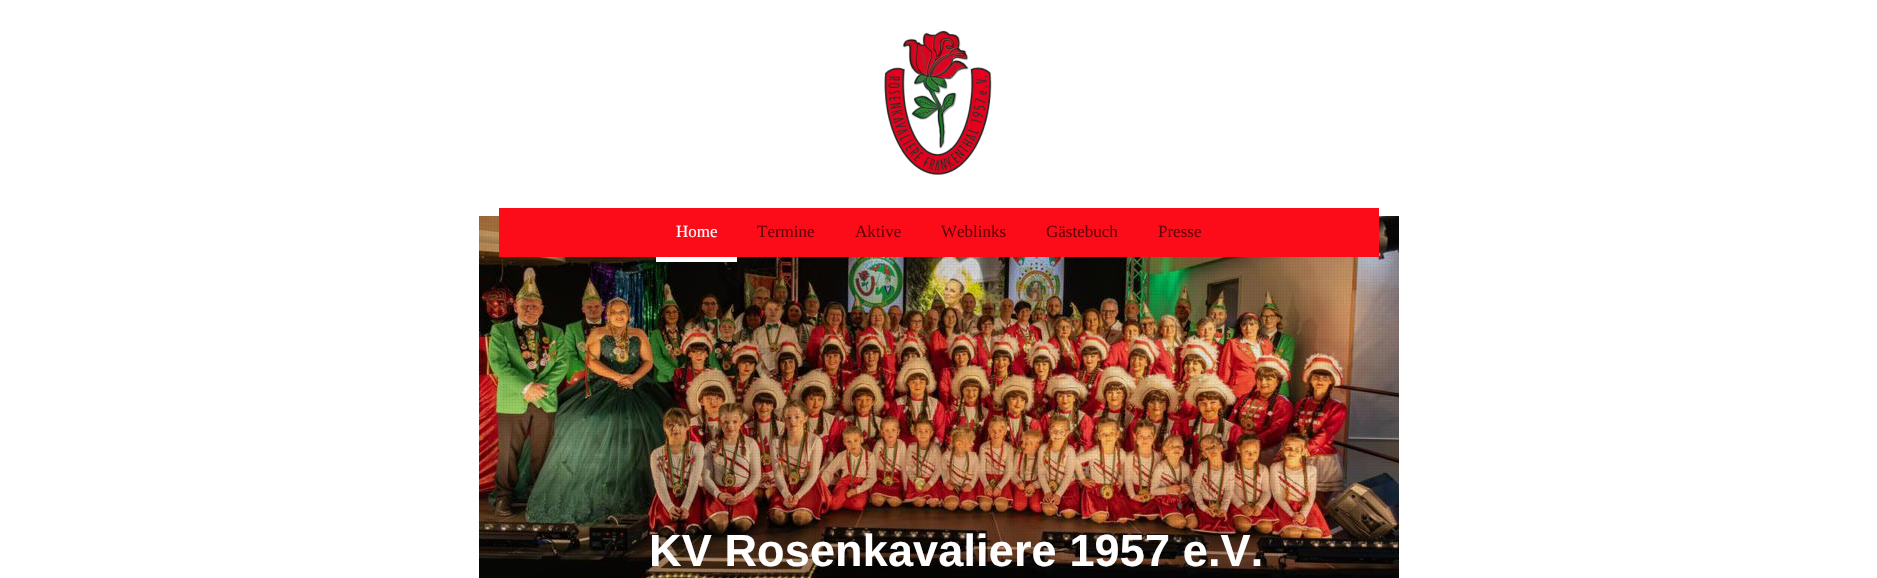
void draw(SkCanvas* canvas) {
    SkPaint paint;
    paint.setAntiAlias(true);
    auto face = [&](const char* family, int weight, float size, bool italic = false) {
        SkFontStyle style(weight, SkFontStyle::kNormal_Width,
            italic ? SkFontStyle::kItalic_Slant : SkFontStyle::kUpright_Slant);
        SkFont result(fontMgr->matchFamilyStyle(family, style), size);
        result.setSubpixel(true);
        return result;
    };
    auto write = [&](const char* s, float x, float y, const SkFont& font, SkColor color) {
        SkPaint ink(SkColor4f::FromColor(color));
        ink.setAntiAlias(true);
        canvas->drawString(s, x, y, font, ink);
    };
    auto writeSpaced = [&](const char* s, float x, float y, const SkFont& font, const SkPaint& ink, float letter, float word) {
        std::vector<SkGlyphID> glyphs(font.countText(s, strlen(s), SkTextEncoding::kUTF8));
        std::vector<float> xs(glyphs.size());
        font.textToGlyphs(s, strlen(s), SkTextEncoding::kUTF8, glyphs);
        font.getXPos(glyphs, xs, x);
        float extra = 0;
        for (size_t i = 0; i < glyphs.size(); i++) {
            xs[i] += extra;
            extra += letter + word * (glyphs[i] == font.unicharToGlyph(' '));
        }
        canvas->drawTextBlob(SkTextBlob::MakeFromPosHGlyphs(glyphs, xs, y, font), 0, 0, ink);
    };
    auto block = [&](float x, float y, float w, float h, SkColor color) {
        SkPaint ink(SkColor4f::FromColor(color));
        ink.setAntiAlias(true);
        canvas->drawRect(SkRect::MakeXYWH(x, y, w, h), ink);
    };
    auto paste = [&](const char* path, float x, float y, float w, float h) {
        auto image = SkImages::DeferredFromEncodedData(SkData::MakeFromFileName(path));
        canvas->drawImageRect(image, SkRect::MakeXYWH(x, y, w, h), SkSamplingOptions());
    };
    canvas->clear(SK_ColorWHITE);
    paste("pic1.png", 884, 30, 108, 145);
    paste("pic2.png", 479, 216, 920, 362);
    paste("pic3.png", 479, 216, 920, 362);
    block(499, 208, 880, 49, SkColorSetRGB(252, 11, 24));
    block(656, 257, 81, 5, SK_ColorWHITE);
    auto kFont1 = face("Liberation Serif", 400, 17);
    write("Home", 676, 237, kFont1, SK_ColorWHITE);
    write("Termine", 757, 237, kFont1, SkColorSetRGB(100, 2, 7));
    write("Aktive", 855, 237, kFont1, SkColorSetRGB(100, 2, 7));
    write("Weblinks", 941, 237, kFont1, SkColorSetRGB(100, 2, 7));
    write("Gästebuch", 1046, 237, kFont1, SkColorSetRGB(100, 2, 7));
    write("Presse", 1158, 237, kFont1, SkColorSetRGB(100, 2, 7));
    auto kFont2 = face("Liberation Sans", 700, 45);
    paint.setColor(SK_ColorWHITE);
    writeSpaced("KV Rosenkavaliere 1957 e.V.", 649, 566, kFont2, paint, 0.15f, 0);
}
